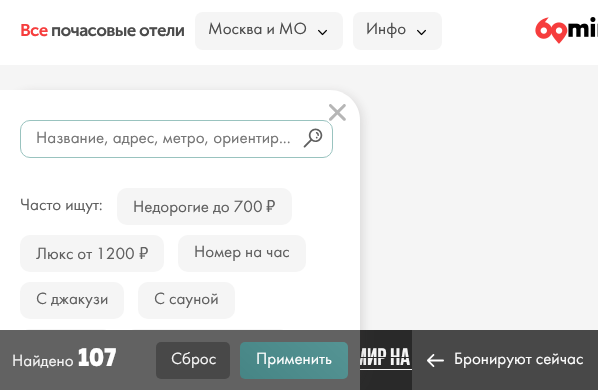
void draw(SkCanvas* canvas) {
    SkPaint paint;
    paint.setAntiAlias(true);
    auto face = [&](const char* family, int weight, float size, bool italic = false) {
        SkFontStyle style(weight, SkFontStyle::kNormal_Width,
            italic ? SkFontStyle::kItalic_Slant : SkFontStyle::kUpright_Slant);
        SkFont result(fontMgr->matchFamilyStyle(family, style), size);
        result.setSubpixel(true);
        return result;
    };
    auto write = [&](const char* s, float x, float y, const SkFont& font, SkColor color) {
        SkPaint ink(SkColor4f::FromColor(color));
        ink.setAntiAlias(true);
        canvas->drawString(s, x, y, font, ink);
    };
    auto writeSpaced = [&](const char* s, float x, float y, const SkFont& font, const SkPaint& ink, float letter, float word) {
        std::vector<SkGlyphID> glyphs(font.countText(s, strlen(s), SkTextEncoding::kUTF8));
        std::vector<float> xs(glyphs.size());
        font.textToGlyphs(s, strlen(s), SkTextEncoding::kUTF8, glyphs);
        font.getXPos(glyphs, xs, x);
        float extra = 0;
        for (size_t i = 0; i < glyphs.size(); i++) {
            xs[i] += extra;
            extra += letter + word * (glyphs[i] == font.unicharToGlyph(' '));
        }
        canvas->drawTextBlob(SkTextBlob::MakeFromPosHGlyphs(glyphs, xs, y, font), 0, 0, ink);
    };
    auto block = [&](float x, float y, float w, float h, SkColor color) {
        SkPaint ink(SkColor4f::FromColor(color));
        ink.setAntiAlias(true);
        canvas->drawRect(SkRect::MakeXYWH(x, y, w, h), ink);
    };
    auto card = [&](float x, float y, float w, float h, float radius, SkColor color) {
        SkPaint ink(SkColor4f::FromColor(color));
        ink.setAntiAlias(true);
        canvas->drawRoundRect(SkRect::MakeXYWH(x, y, w, h), radius, radius, ink);
    };
    auto paste = [&](const char* path, float x, float y, float w, float h) {
        auto image = SkImages::DeferredFromEncodedData(SkData::MakeFromFileName(path));
        canvas->drawImageRect(image, SkRect::MakeXYWH(x, y, w, h), SkSamplingOptions());
    };
    canvas->clear(SkColorSetRGB(245, 245, 245));
    block(0, 0, 598, 65, SK_ColorWHITE);
    auto kFont1 = face("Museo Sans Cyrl", 600, 17);
    paint.setColor(SkColorSetRGB(246, 61, 61));
    writeSpaced("Все", 20, 36, kFont1, paint, -0.7f, 0);
    paint.setColor(SkColorSetRGB(76, 76, 76));
    writeSpaced("почасовые отели", 51, 36, kFont1, paint, -0.7f, 0);
    card(195, 12, 148, 38, 8, SkColorSetRGB(245, 245, 245));
    auto kFont2 = face("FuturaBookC", 400, 17);
    write("Москва и МО", 208, 34, kFont2, SkColorSetRGB(76, 76, 76));
    paste("pic1.png", 318, 29, 9, 7);
    card(353, 12, 89, 38, 8, SkColorSetRGB(245, 245, 245));
    write("Инфо", 366, 34, kFont2, SkColorSetRGB(76, 76, 76));
    paste("pic1.png", 417, 29, 9, 7);
    paste("pic2.png", 535, 17, 63, 27);
    block(360, 330, 52, 60, SkColorSetRGB(41, 41, 41));
    block(360, 369, 52, 1, SkColorSetRGB(245, 245, 245));
    auto kFont3 = face("Bebas Neue", 700, 24);
    write("мир на", 354, 365, kFont3, SkColorSetRGB(245, 245, 245));
    block(360, 357, 52, 1, SkColorSetRGB(41, 41, 41));
    paint.setColor(SkColorSetARGB(38, 65, 63, 62));
    paint.setMaskFilter(SkMaskFilter::MakeBlur(kNormal_SkBlurStyle, 5));
    canvas->drawRoundRect(SkRect::MakeXYWH(3, 92, 360, 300), 30, 30, paint);
    paint.setMaskFilter(nullptr);
    paint.setColor(SK_ColorWHITE);
    canvas->drawPath(SkPathBuilder().moveTo(0, 90).lineTo(330, 90).cubicTo(346.5f, 90, 360, 103.5f, 360, 120).lineTo(360, 390).lineTo(0, 390).close().detach(), paint);
    paint.setStyle(SkPaint::kStroke_Style);
    paint.setStrokeWidth(1);
    paint.setColor(SkColorSetRGB(153, 195, 191));
    canvas->drawRoundRect(SkRect::MakeXYWH(20.5f, 120.5f, 312, 37), 9.5f, 9.5f, paint);
    card(325, 100, 25, 26, 12.5f, SK_ColorWHITE);
    paste("pic3.png", 329, 104, 17, 17);
    write("Название, адрес, метро, ориентир...", 36, 143, kFont2, SkColorSetRGB(117, 117, 117));
    paste("pic4.png", 303, 128, 20, 20);
    write("Часто ищут:", 20, 210, kFont2, SkColorSetRGB(96, 96, 96));
    card(117, 188, 175, 37, 10, SkColorSetRGB(245, 245, 245));
    write("Недорогие до 700", 133, 212, kFont2, SkColorSetRGB(96, 96, 96));
    auto kFont4 = face("PT Sans", 400, 17);
    write("₽", 266, 212, kFont4, SkColorSetRGB(96, 96, 96));
    card(20, 235, 144, 37, 10, SkColorSetRGB(245, 245, 245));
    write("Люкс от 1200", 36, 259, kFont2, SkColorSetRGB(96, 96, 96));
    write("₽", 139, 259, kFont4, SkColorSetRGB(96, 96, 96));
    card(178, 235, 128, 37, 10, SkColorSetRGB(245, 245, 245));
    write("Номер на час", 194, 257, kFont2, SkColorSetRGB(96, 96, 96));
    card(20, 282, 104, 37, 10, SkColorSetRGB(245, 245, 245));
    write("С джакузи", 36, 304, kFont2, SkColorSetRGB(96, 96, 96));
    card(138, 282, 97, 37, 10, SkColorSetRGB(245, 245, 245));
    write("С сауной", 154, 304, kFont2, SkColorSetRGB(96, 96, 96));
    paint.setStyle(SkPaint::kFill_Style);
    paint.setColor(SkColorSetRGB(245, 245, 245));
    canvas->drawPath(SkPathBuilder().moveTo(30, 329).lineTo(102, 329).cubicTo(107.5f, 329, 112, 333.5f, 112, 339).lineTo(112, 330).lineTo(20, 330).lineTo(20, 339).cubicTo(20, 333.5f, 24.5f, 329, 30, 329).close().detach(), paint);
    canvas->drawPath(SkPathBuilder().moveTo(136, 329).lineTo(279, 329).cubicTo(284.5f, 329, 289, 333.5f, 289, 339).lineTo(289, 330).lineTo(126, 330).lineTo(126, 339).cubicTo(126, 333.5f, 130.5f, 329, 136, 329).close().detach(), paint);
    block(0, 330, 360, 60, SkColorSetRGB(98, 98, 98));
    write("Найдено", 12, 366, kFont2, SkColorSetRGB(245, 245, 245));
    auto kFont5 = face("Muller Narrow", 800, 26);
    write("107", 78, 366, kFont5, SK_ColorWHITE);
    card(156, 342, 74, 37, 5, SkColorSetRGB(72, 72, 72));
    write("Сброс", 171, 364, kFont2, SkColorSetRGB(245, 245, 245));
    {
        const SkColor colors[] = {SkColorSetRGB(85, 148, 148), SkColorSetRGB(70, 133, 133)};
        const float stops[] = {0, 1};
        const SkPoint ends[] = {{328, 324}, {260, 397}};
        paint.setShader(SkGradientShader::MakeLinear(ends, colors, stops, 2, SkTileMode::kClamp));
        paint.setAlpha(255);
    }
    canvas->drawRoundRect(SkRect::MakeXYWH(240, 342, 108, 37), 5, 5, paint);
    write("Применить", 256, 364, kFont2, SK_ColorWHITE);
    block(412, 330, 186, 60, SkColorSetRGB(72, 72, 72));
    paste("pic5.png", 427, 354, 17, 13);
    write("Бронируют сейчас", 454, 364, kFont2, SK_ColorWHITE);
}
